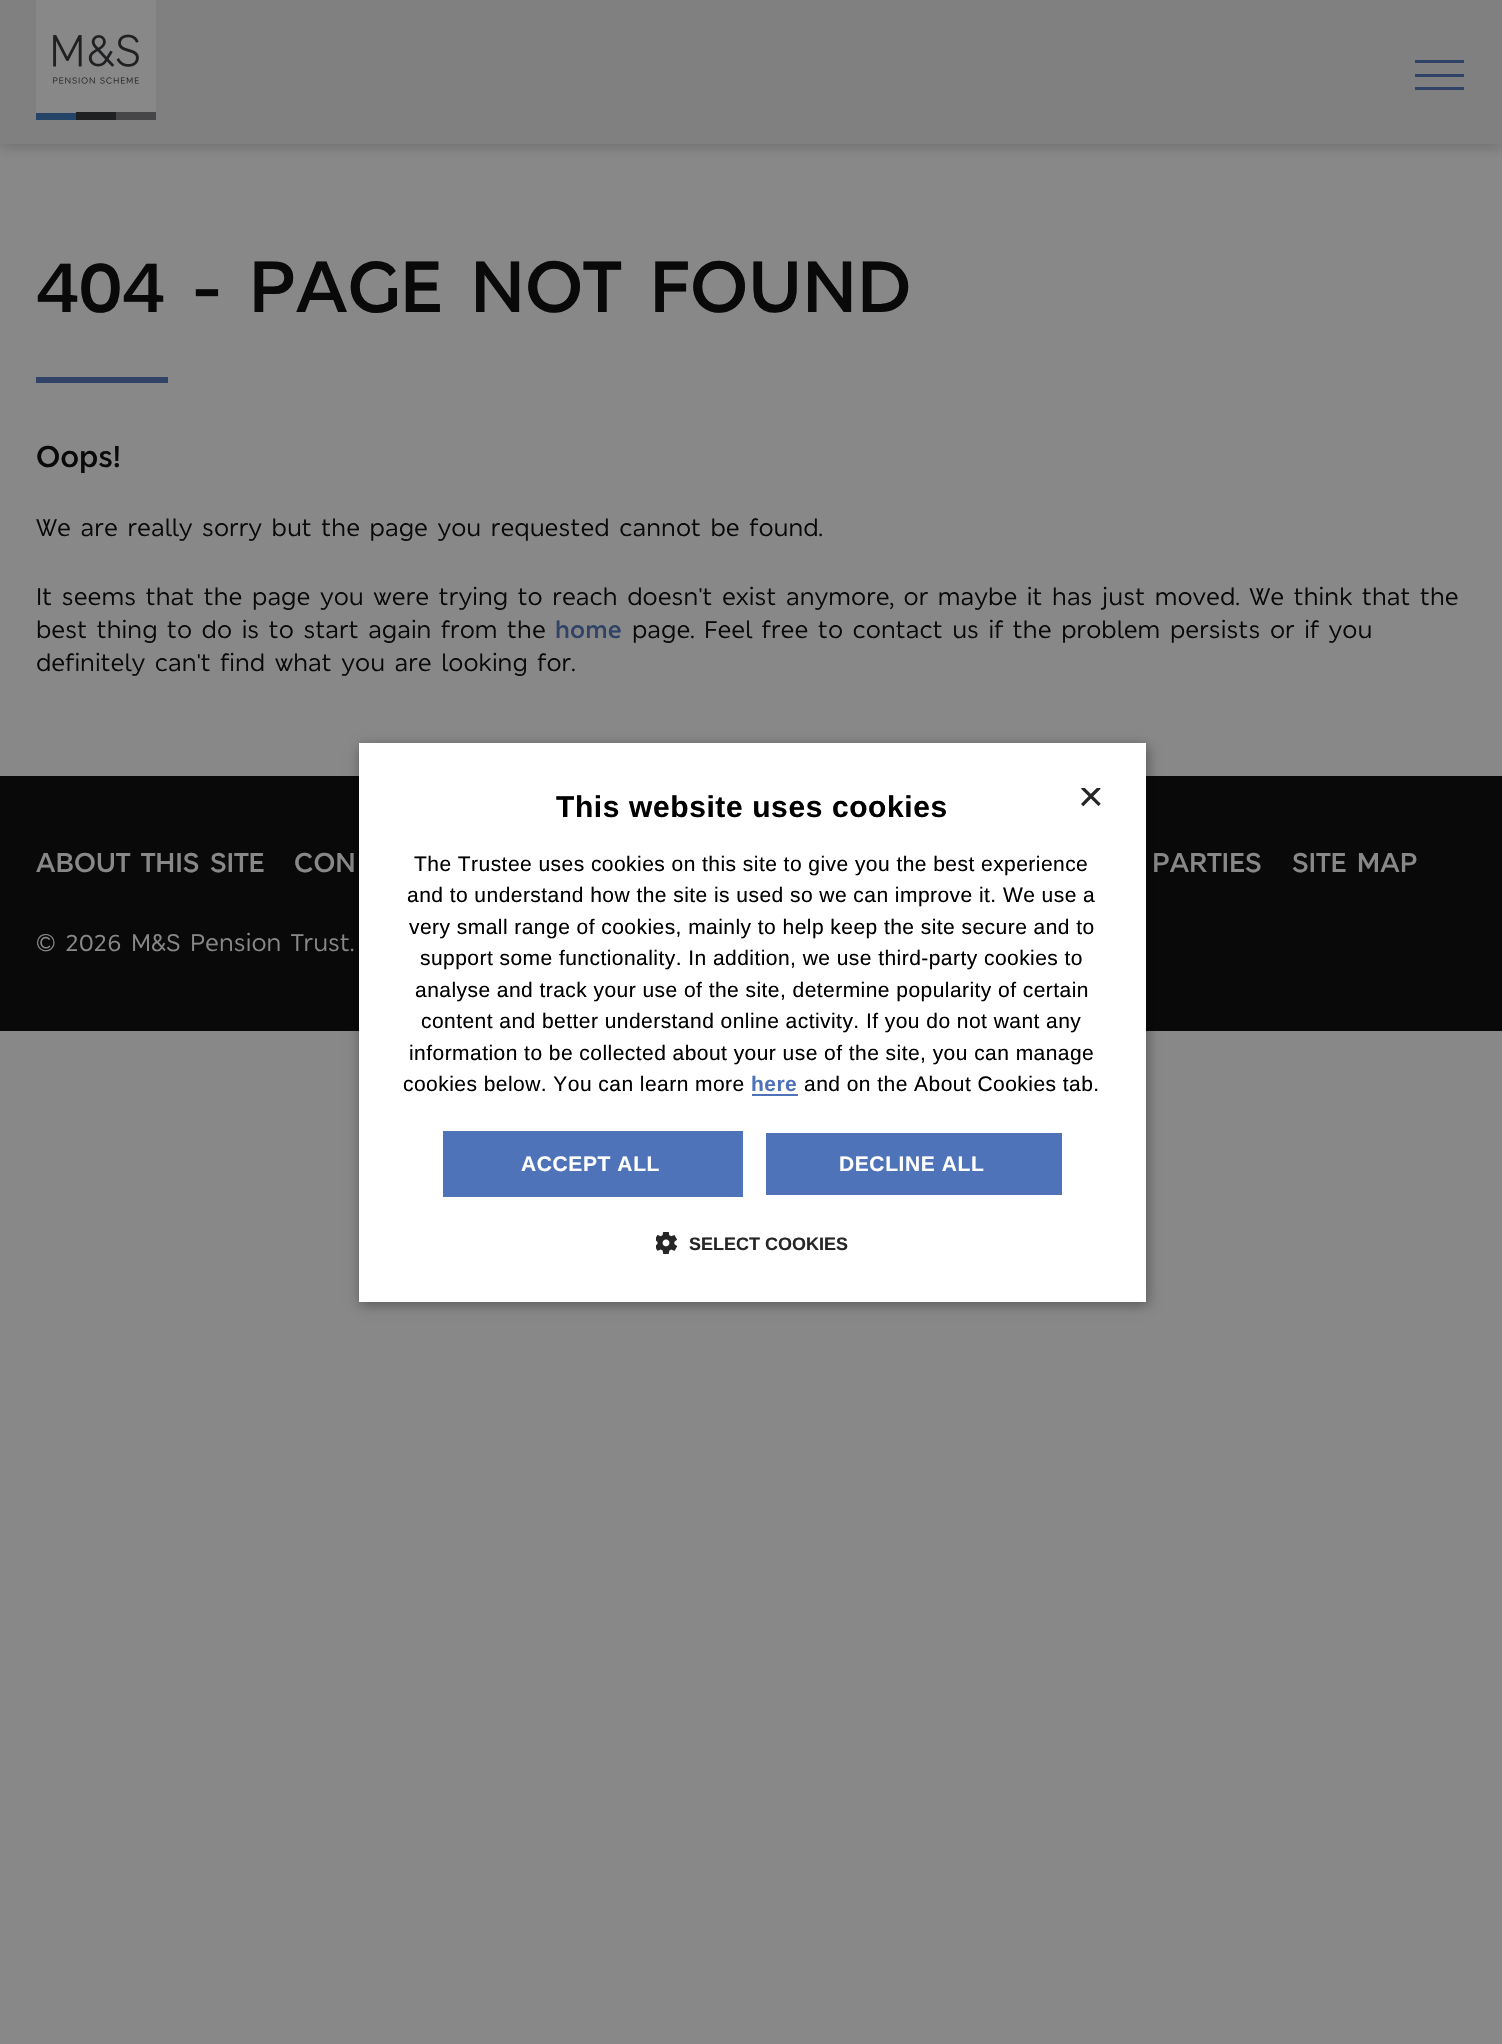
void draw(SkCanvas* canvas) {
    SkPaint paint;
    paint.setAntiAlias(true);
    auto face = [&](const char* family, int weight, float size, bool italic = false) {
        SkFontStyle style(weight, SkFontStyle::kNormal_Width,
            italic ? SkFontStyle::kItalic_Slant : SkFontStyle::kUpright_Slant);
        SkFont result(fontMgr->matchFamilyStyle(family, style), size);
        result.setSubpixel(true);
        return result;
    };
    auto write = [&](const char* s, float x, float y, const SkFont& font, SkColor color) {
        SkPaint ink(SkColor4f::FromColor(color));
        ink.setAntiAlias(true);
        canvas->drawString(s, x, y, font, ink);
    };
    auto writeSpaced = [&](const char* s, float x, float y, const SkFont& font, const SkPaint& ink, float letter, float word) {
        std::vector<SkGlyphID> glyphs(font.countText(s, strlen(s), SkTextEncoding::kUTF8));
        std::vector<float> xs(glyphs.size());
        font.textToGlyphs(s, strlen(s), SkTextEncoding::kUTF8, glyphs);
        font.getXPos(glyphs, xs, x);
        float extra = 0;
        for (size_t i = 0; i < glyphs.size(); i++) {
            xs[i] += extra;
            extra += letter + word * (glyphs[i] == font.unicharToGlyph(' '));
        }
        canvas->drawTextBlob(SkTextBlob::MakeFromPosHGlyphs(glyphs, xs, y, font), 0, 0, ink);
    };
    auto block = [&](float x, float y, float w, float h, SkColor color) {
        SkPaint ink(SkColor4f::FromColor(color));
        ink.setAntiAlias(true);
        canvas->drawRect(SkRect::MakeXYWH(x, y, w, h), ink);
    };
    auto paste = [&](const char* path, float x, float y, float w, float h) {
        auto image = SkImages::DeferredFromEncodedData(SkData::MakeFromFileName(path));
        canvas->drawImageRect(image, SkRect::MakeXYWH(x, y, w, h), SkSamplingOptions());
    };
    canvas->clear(SkColorSetRGB(136, 136, 136));
    paint.setColor(SkColorSetARGB(41, 9, 9, 9));
    paint.setMaskFilter(SkMaskFilter::MakeBlur(kNormal_SkBlurStyle, 6));
    canvas->drawRect(SkRect::MakeXYWH(0, 5, 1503, 144), paint);
    paint.setMaskFilter(nullptr);
    block(0, 0, 1502, 144, SkColorSetRGB(128, 128, 128));
    paste("pic1.png", 36, 0, 120, 120);
    block(1415, 74, 49, 3, SkColorSetRGB(48, 66, 101));
    block(1415, 60, 49, 3, SkColorSetRGB(48, 66, 101));
    block(1415, 87, 49, 3, SkColorSetRGB(48, 66, 101));
    auto kFont1 = face("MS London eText", 600, 72);
    write("404 - PAGE NOT FOUND", 36, 312, kFont1, SkColorSetRGB(9, 9, 9));
    block(36, 377, 132, 6, SkColorSetRGB(48, 66, 101));
    auto kFont2 = face("MS London eText", 600, 30);
    write("Oops!", 36, 467, kFont2, SkColorSetRGB(9, 9, 9));
    auto kFont3 = face("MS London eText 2", 600, 24);
    write("We are really sorry but the page you requested cannot be found.", 36, 536, kFont3, SkColorSetRGB(9, 9, 9));
    write("It seems that the page you were trying to reach doesn't exist anymore, or maybe it has just moved. We think that the", 36, 605, kFont3, SkColorSetRGB(9, 9, 9));
    write("best thing to do is to start again from the", 36, 638, kFont3, SkColorSetRGB(9, 9, 9));
    auto kFont4 = face("MS London eText", 600, 24);
    write("home", 555, 638, kFont4, SkColorSetRGB(48, 66, 101));
    write("page. Feel free to contact us if the problem persists or if you", 632, 638, kFont3, SkColorSetRGB(9, 9, 9));
    write("definitely can't find what you are looking for.", 36, 671, kFont3, SkColorSetRGB(9, 9, 9));
    block(0, 776, 1502, 255, SkColorSetRGB(9, 9, 9));
    auto kFont5 = face("MS London eText", 600, 27);
    write("ABOUT THIS SITE", 36, 872, kFont5, SkColorSetRGB(136, 136, 136));
    write("CON", 294, 872, kFont5, SkColorSetRGB(136, 136, 136));
    write("PARTIES", 1152, 872, kFont5, SkColorSetRGB(136, 136, 136));
    write("SITE MAP", 1292, 872, kFont5, SkColorSetRGB(136, 136, 136));
    write("© 2026 M&S Pension Trust.", 36, 951, kFont3, SkColorSetRGB(136, 136, 136));
    paint.setColor(SkColorSetARGB(89, 0, 0, 0));
    paint.setMaskFilter(SkMaskFilter::MakeBlur(kNormal_SkBlurStyle, 6));
    canvas->drawRect(SkRect::MakeXYWH(360, 746, 788, 559), paint);
    paint.setMaskFilter(nullptr);
    block(359, 743, 787, 559, SK_ColorWHITE);
    auto kFont6 = face("Liberation Sans", 700, 30);
    paint.setColor(SK_ColorBLACK);
    writeSpaced("This website uses cookies", 556, 817, kFont6, paint, 0.6f, 0);
    canvas->save();
    canvas->clipRect(SkRect::MakeXYWH(1079, 788, 22, 22));
    auto kFont7 = face("Liberation Sans", 400, 44);
    write("×", 1078, 811, kFont7, SkColorSetRGB(38, 38, 38));
    canvas->restore();
    auto kFont8 = face("Liberation Sans", 400, 21);
    writeSpaced("The Trustee uses cookies on this site to give you the best experience", 414, 871, kFont8, paint, 0.45f, 0);
    writeSpaced("and to understand how the site is used so we can improve it. We use a", 407, 902, kFont8, paint, 0.45f, 0);
    writeSpaced("very small range of cookies, mainly to help keep the site secure and to", 409, 934, kFont8, paint, 0.45f, 0);
    writeSpaced("support some functionality. In addition, we use third-party cookies to", 420, 965, kFont8, paint, 0.45f, 0);
    writeSpaced("analyse and track your use of the site, determine popularity of certain", 415, 997, kFont8, paint, 0.45f, 0);
    writeSpaced("content and better understand online activity. If you do not want any", 421, 1028, kFont8, paint, 0.45f, 0);
    writeSpaced("information to be collected about your use of the site, you can manage", 409, 1060, kFont8, paint, 0.45f, 0);
    writeSpaced("cookies below. You can learn more", 403, 1091, kFont8, paint, 0.45f, 0);
    auto kFont9 = face("Liberation Sans", 700, 21);
    paint.setColor(SkColorSetRGB(78, 115, 184));
    writeSpaced("here", 751, 1091, kFont9, paint, 0.45f, 0);
    block(752, 1094, 46, 2, SkColorSetRGB(78, 115, 184));
    paint.setColor(SK_ColorBLACK);
    writeSpaced("and on the About Cookies tab.", 804, 1091, kFont8, paint, 0.45f, 0);
    block(443, 1131, 300, 66, SkColorSetRGB(78, 115, 184));
    paint.setColor(SK_ColorWHITE);
    writeSpaced("ACCEPT ALL", 521, 1171, kFont9, paint, 0.6f, 0);
    block(766, 1133, 296, 62, SkColorSetRGB(78, 115, 184));
    writeSpaced("DECLINE ALL", 839, 1171, kFont9, paint, 0.6f, 0);
    paste("pic2.png", 656, 1232, 22, 22);
    auto kFont10 = face("Liberation Sans", 700, 18);
    write("SELECT COOKIES", 689, 1250, kFont10, SkColorSetRGB(38, 38, 38));
}
